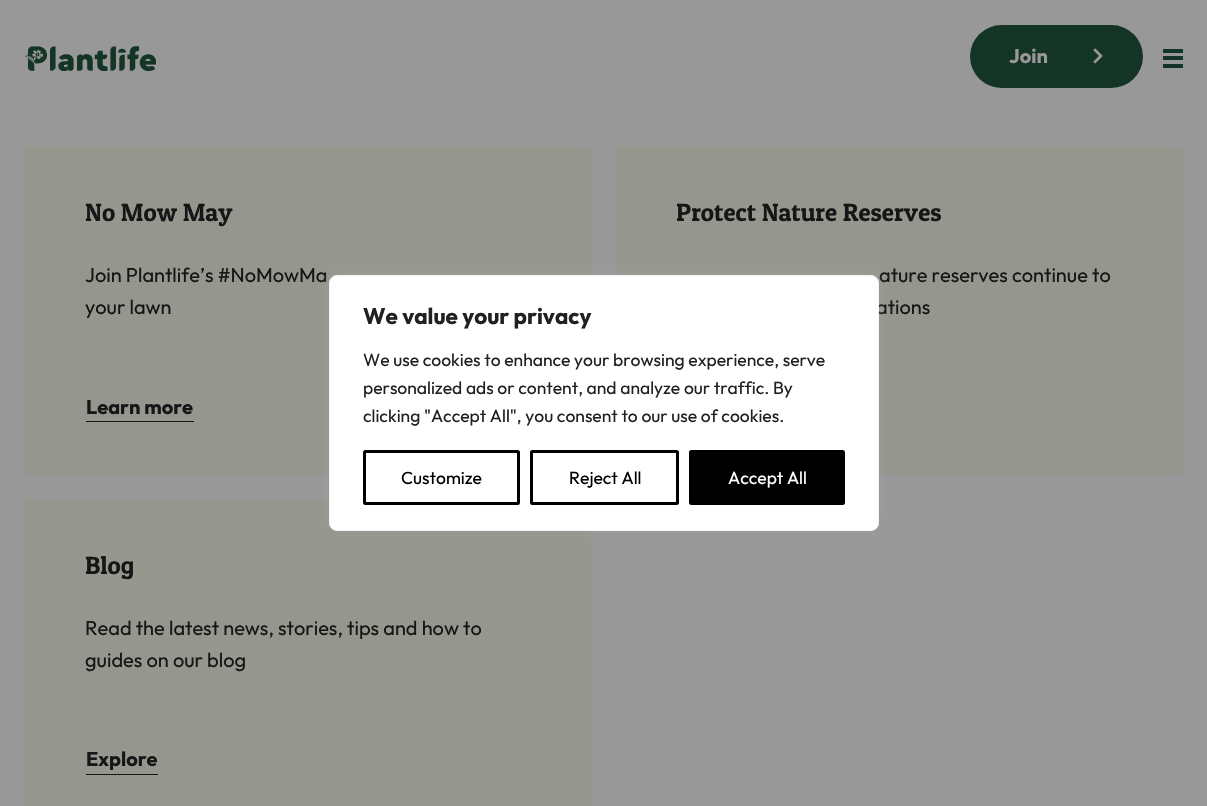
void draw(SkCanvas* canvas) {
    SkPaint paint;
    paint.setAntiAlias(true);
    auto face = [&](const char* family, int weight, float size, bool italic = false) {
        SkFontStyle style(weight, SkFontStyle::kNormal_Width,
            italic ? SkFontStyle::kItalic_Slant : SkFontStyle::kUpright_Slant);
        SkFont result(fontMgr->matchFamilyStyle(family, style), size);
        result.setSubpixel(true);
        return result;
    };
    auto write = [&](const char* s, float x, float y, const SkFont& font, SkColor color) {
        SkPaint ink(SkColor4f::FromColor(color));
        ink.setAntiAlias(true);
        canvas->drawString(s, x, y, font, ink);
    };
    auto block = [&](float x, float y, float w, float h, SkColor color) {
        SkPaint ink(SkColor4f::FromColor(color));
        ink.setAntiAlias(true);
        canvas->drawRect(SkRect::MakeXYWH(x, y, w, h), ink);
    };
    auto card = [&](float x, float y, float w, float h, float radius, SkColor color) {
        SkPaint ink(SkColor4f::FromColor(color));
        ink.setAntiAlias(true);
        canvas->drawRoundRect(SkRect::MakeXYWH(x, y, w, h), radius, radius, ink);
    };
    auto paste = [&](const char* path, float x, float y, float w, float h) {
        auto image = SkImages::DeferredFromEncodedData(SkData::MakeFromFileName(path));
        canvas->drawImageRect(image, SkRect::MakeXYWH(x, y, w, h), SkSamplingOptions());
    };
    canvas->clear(SkColorSetRGB(152, 152, 152));
    paste("pic1.png", 25, 46, 131, 25);
    card(970, 25, 173, 63, 31.5f, SkColorSetRGB(20, 52, 38));
    auto kFont1 = face("Outfit", 700, 20);
    write("Join", 1009, 63, kFont1, SkColorSetRGB(152, 152, 152));
    paste("pic2.png", 1093, 48, 10, 16);
    block(1163, 56, 20, 4, SkColorSetRGB(20, 52, 38));
    block(1163, 49, 20, 4, SkColorSetRGB(20, 52, 38));
    block(1163, 64, 20, 4, SkColorSetRGB(20, 52, 38));
    block(25, 146, 566, 328, SkColorSetRGB(149, 150, 142));
    auto kFont2 = face("Patua One", 400, 25);
    write("No Mow May", 85, 221, kFont2, SkColorSetRGB(22, 22, 22));
    auto kFont3 = face("Outfit", 400, 20);
    write("Join Plantlife’s #NoMowMa", 85, 282, kFont3, SkColorSetRGB(22, 22, 22));
    write("your lawn", 85, 314, kFont3, SkColorSetRGB(22, 22, 22));
    write("Learn more", 86, 414, kFont1, SkColorSetRGB(22, 22, 22));
    block(86, 421, 108, 1, SkColorSetRGB(22, 22, 22));
    block(616, 146, 567, 328, SkColorSetRGB(149, 150, 142));
    write("Protect Nature Reserves", 676, 221, kFont2, SkColorSetRGB(22, 22, 22));
    write("ature reserves continue to", 879, 282, kFont3, SkColorSetRGB(22, 22, 22));
    write("ations", 876, 314, kFont3, SkColorSetRGB(22, 22, 22));
    block(25, 499, 566, 307, SkColorSetRGB(149, 150, 142));
    write("Blog", 85, 574, kFont2, SkColorSetRGB(22, 22, 22));
    write("Read the latest news, stories, tips and how to", 85, 635, kFont3, SkColorSetRGB(22, 22, 22));
    write("guides on our blog", 85, 667, kFont3, SkColorSetRGB(22, 22, 22));
    write("Explore", 86, 766, kFont1, SkColorSetRGB(22, 22, 22));
    block(86, 774, 72, 1, SkColorSetRGB(22, 22, 22));
    paint.setColor(SkColorSetARGB(77, 172, 171, 171));
    paint.setMaskFilter(SkMaskFilter::MakeBlur(kNormal_SkBlurStyle, 6));
    canvas->drawRoundRect(SkRect::MakeXYWH(329, 274, 550, 256), 8, 8, paint);
    paint.setMaskFilter(nullptr);
    paint.setColor(SK_ColorWHITE);
    canvas->drawRoundRect(SkRect::MakeXYWH(329.5f, 275.5f, 549, 255), 7.5f, 7.5f, paint);
    paint.setStyle(SkPaint::kStroke_Style);
    paint.setStrokeWidth(1);
    paint.setColor(SkColorSetRGB(244, 244, 244));
    canvas->drawRoundRect(SkRect::MakeXYWH(329.5f, 275.5f, 549, 255), 7.5f, 7.5f, paint);
    auto kFont4 = face("Outfit", 700, 22.5f);
    write("We value your privacy", 363, 324, kFont4, SkColorSetRGB(33, 33, 33));
    auto kFont5 = face("Outfit", 400, 17.5f);
    write("We use cookies to enhance your browsing experience, serve", 363, 366, kFont5, SkColorSetRGB(33, 33, 33));
    write("personalized ads or content, and analyze our traffic. By", 363, 394, kFont5, SkColorSetRGB(33, 33, 33));
    write("clicking \"Accept All\", you consent to our use of cookies.", 363, 422, kFont5, SkColorSetRGB(33, 33, 33));
    paint.setStrokeWidth(3);
    paint.setColor(SK_ColorBLACK);
    canvas->drawRoundRect(SkRect::MakeXYWH(364.5f, 451.5f, 154, 52), 1, 1, paint);
    write("Customize", 401, 484, kFont5, SK_ColorBLACK);
    canvas->drawRoundRect(SkRect::MakeXYWH(531.5f, 451.5f, 146, 52), 1, 1, paint);
    write("Reject All", 569, 484, kFont5, SK_ColorBLACK);
    paint.setStyle(SkPaint::kFill_Style);
    canvas->drawRoundRect(SkRect::MakeXYWH(690.5f, 451.5f, 153, 52), 1, 1, paint);
    paint.setStyle(SkPaint::kStroke_Style);
    canvas->drawRoundRect(SkRect::MakeXYWH(690.5f, 451.5f, 153, 52), 1, 1, paint);
    write("Accept All", 728, 484, kFont5, SK_ColorWHITE);
}
